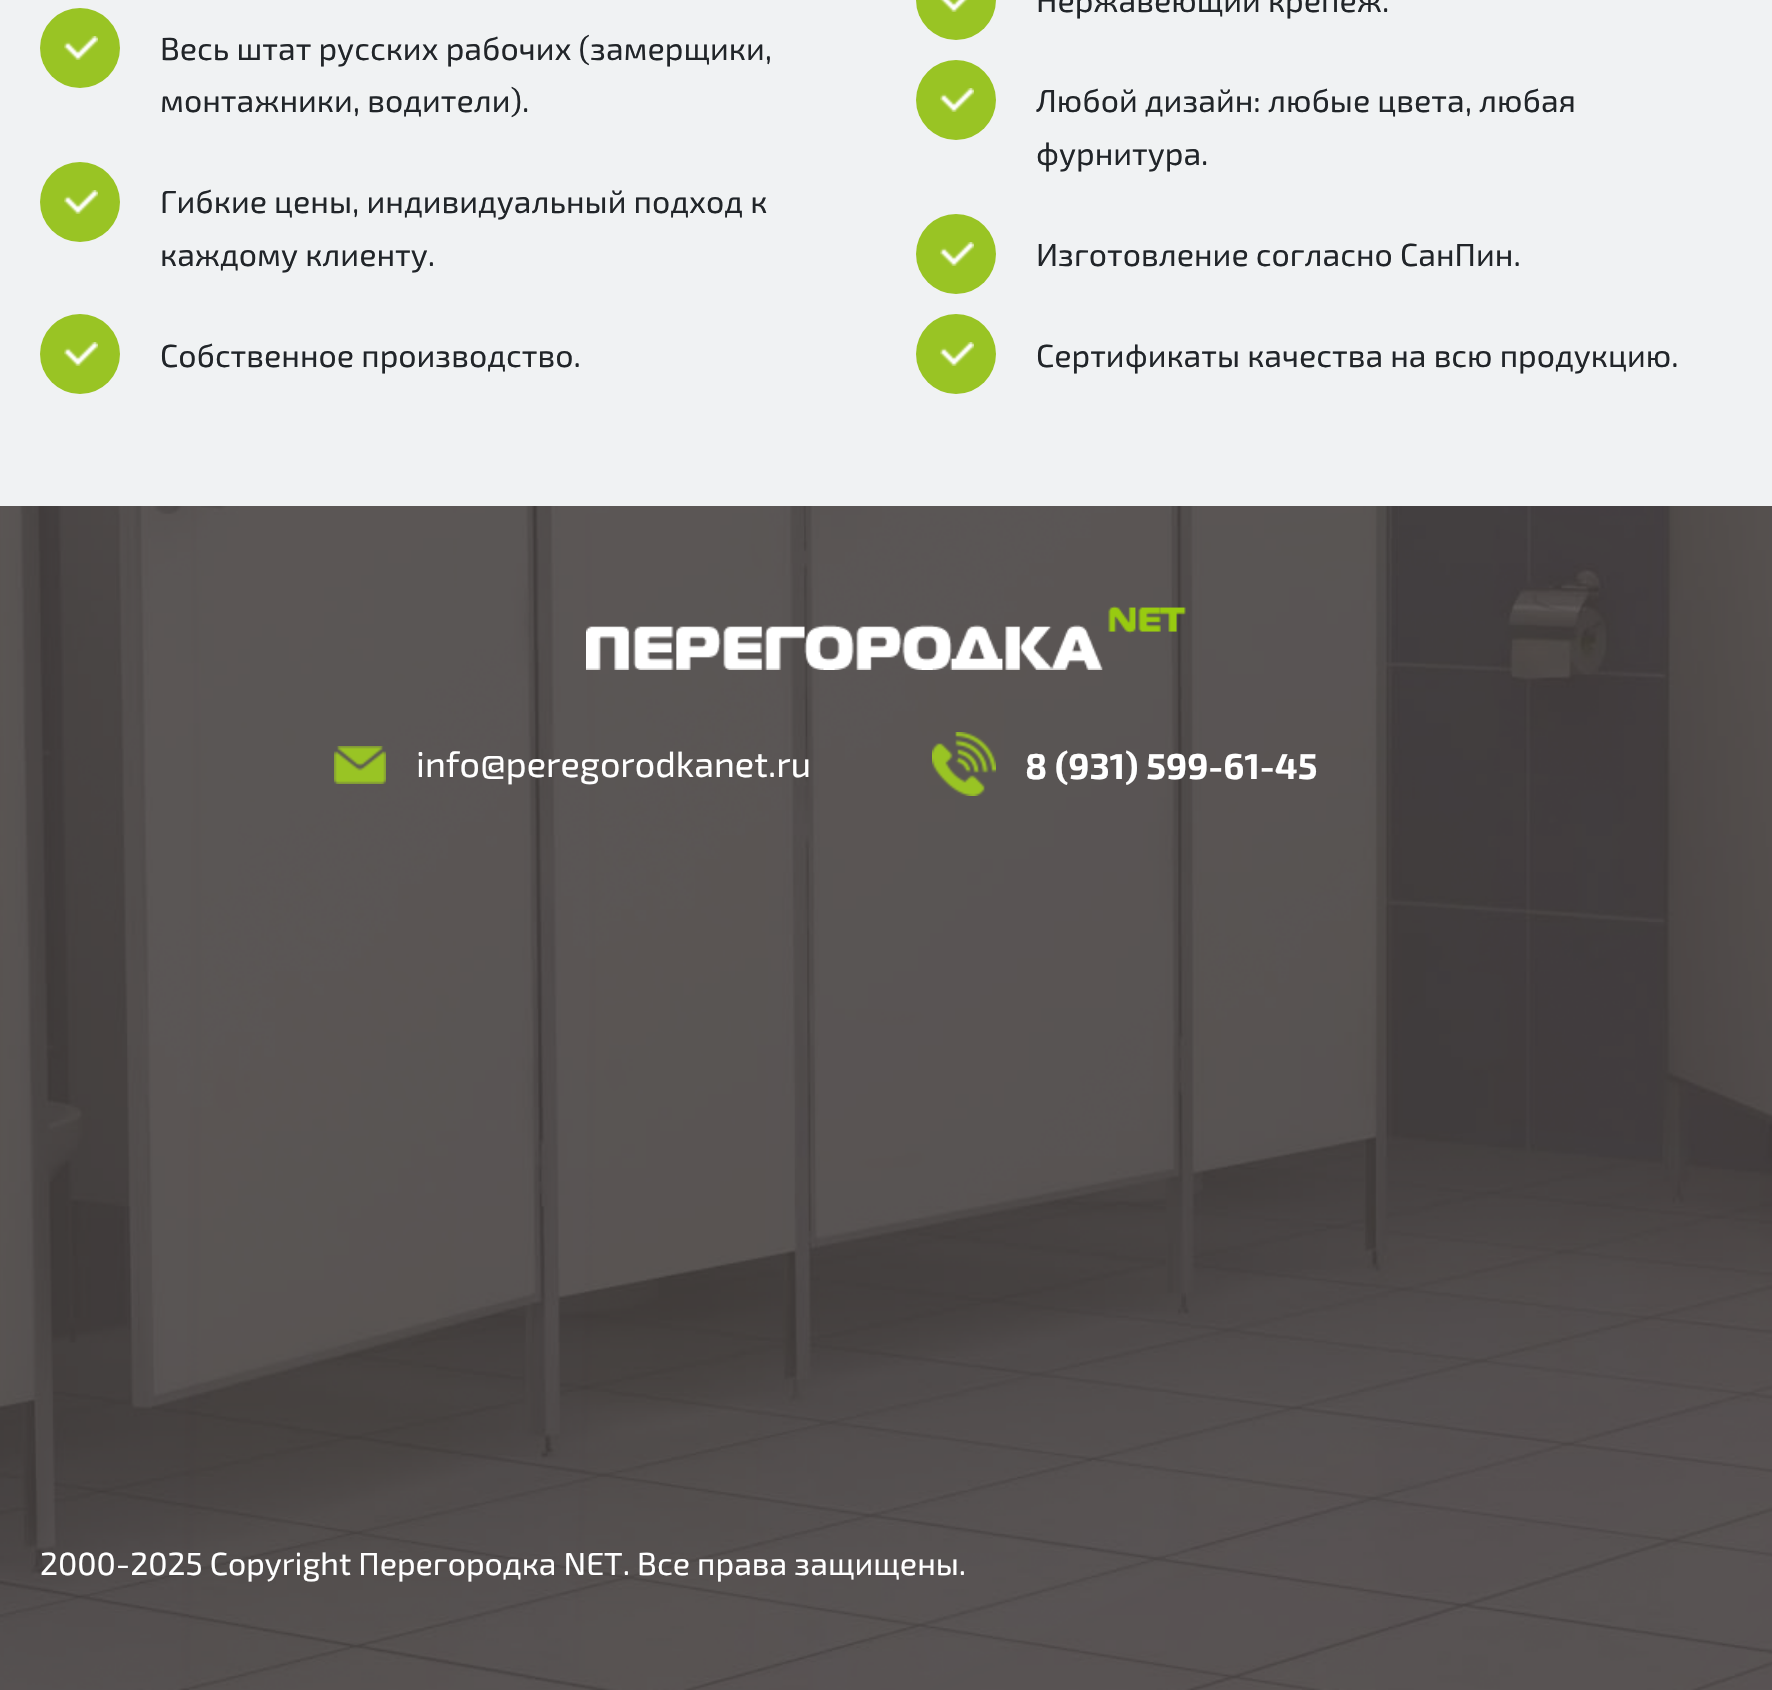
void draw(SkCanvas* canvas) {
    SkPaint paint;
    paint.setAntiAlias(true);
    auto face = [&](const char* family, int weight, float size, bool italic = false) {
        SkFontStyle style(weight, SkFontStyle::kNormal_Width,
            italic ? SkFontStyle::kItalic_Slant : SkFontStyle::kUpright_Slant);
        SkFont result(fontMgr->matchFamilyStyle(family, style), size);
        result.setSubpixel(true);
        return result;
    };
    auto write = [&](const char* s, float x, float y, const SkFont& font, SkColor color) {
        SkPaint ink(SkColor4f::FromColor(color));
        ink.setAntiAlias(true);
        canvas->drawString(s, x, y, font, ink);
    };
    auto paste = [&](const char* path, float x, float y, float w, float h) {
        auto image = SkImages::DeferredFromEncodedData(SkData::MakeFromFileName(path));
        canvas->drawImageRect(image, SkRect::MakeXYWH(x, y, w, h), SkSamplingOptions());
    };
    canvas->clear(SkColorSetRGB(240, 242, 243));
    paint.setColor(SkColorSetRGB(153, 196, 36));
    canvas->drawCircle(80, 48, 40, paint);
    paste("pic1.png", 64, 36, 34, 24);
    auto kFont1 = face("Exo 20", 400, 32);
    write("Весь штат русских рабочих (замерщики,", 160, 60, kFont1, SkColorSetRGB(33, 37, 41));
    write("монтажники, водители).", 160, 112, kFont1, SkColorSetRGB(33, 37, 41));
    canvas->drawCircle(80, 202, 40, paint);
    paste("pic1.png", 64, 190, 34, 24);
    write("Гибкие цены, индивидуальный подход к", 160, 213, kFont1, SkColorSetRGB(33, 37, 41));
    write("каждому клиенту.", 160, 266, kFont1, SkColorSetRGB(33, 37, 41));
    canvas->drawCircle(80, 354, 40, paint);
    paste("pic1.png", 64, 342, 34, 24);
    write("Собственное производство.", 160, 367, kFont1, SkColorSetRGB(33, 37, 41));
    canvas->drawCircle(956, 0, 40, paint);
    paste("pic2.png", 940, 0, 28, 12);
    write("Нержавеющий крепеж.", 1036, 12, kFont1, SkColorSetRGB(33, 37, 41));
    canvas->drawCircle(956, 100, 40, paint);
    paste("pic1.png", 940, 88, 34, 24);
    write("Любой дизайн: любые цвета, любая", 1036, 112, kFont1, SkColorSetRGB(33, 37, 41));
    write("фурнитура.", 1036, 165, kFont1, SkColorSetRGB(33, 37, 41));
    canvas->drawCircle(956, 254, 40, paint);
    paste("pic1.png", 940, 242, 34, 24);
    write("Изготовление согласно СанПин.", 1036, 266, kFont1, SkColorSetRGB(33, 37, 41));
    canvas->drawCircle(956, 354, 40, paint);
    paste("pic1.png", 940, 342, 34, 24);
    write("Сертификаты качества на всю продукцию.", 1036, 367, kFont1, SkColorSetRGB(33, 37, 41));
    paste("pic3.png", 0, 506, 1772, 1184);
    paste("pic4.png", 586, 606, 600, 64);
    paste("pic5.png", 334, 746, 52, 38);
    auto kFont2 = face("Exo 20", 400, 36);
    write("info@peregorodkanet.ru", 416, 777, kFont2, SK_ColorWHITE);
    paste("pic6.png", 932, 732, 64, 64);
    auto kFont3 = face("Exo 20", 700, 36);
    write("8 (931) 599-61-45", 1025, 779, kFont3, SK_ColorWHITE);
    write("2000-2025 Copyright Перегородка NET. Все права защищены.", 40, 1575, kFont1, SK_ColorWHITE);
}
